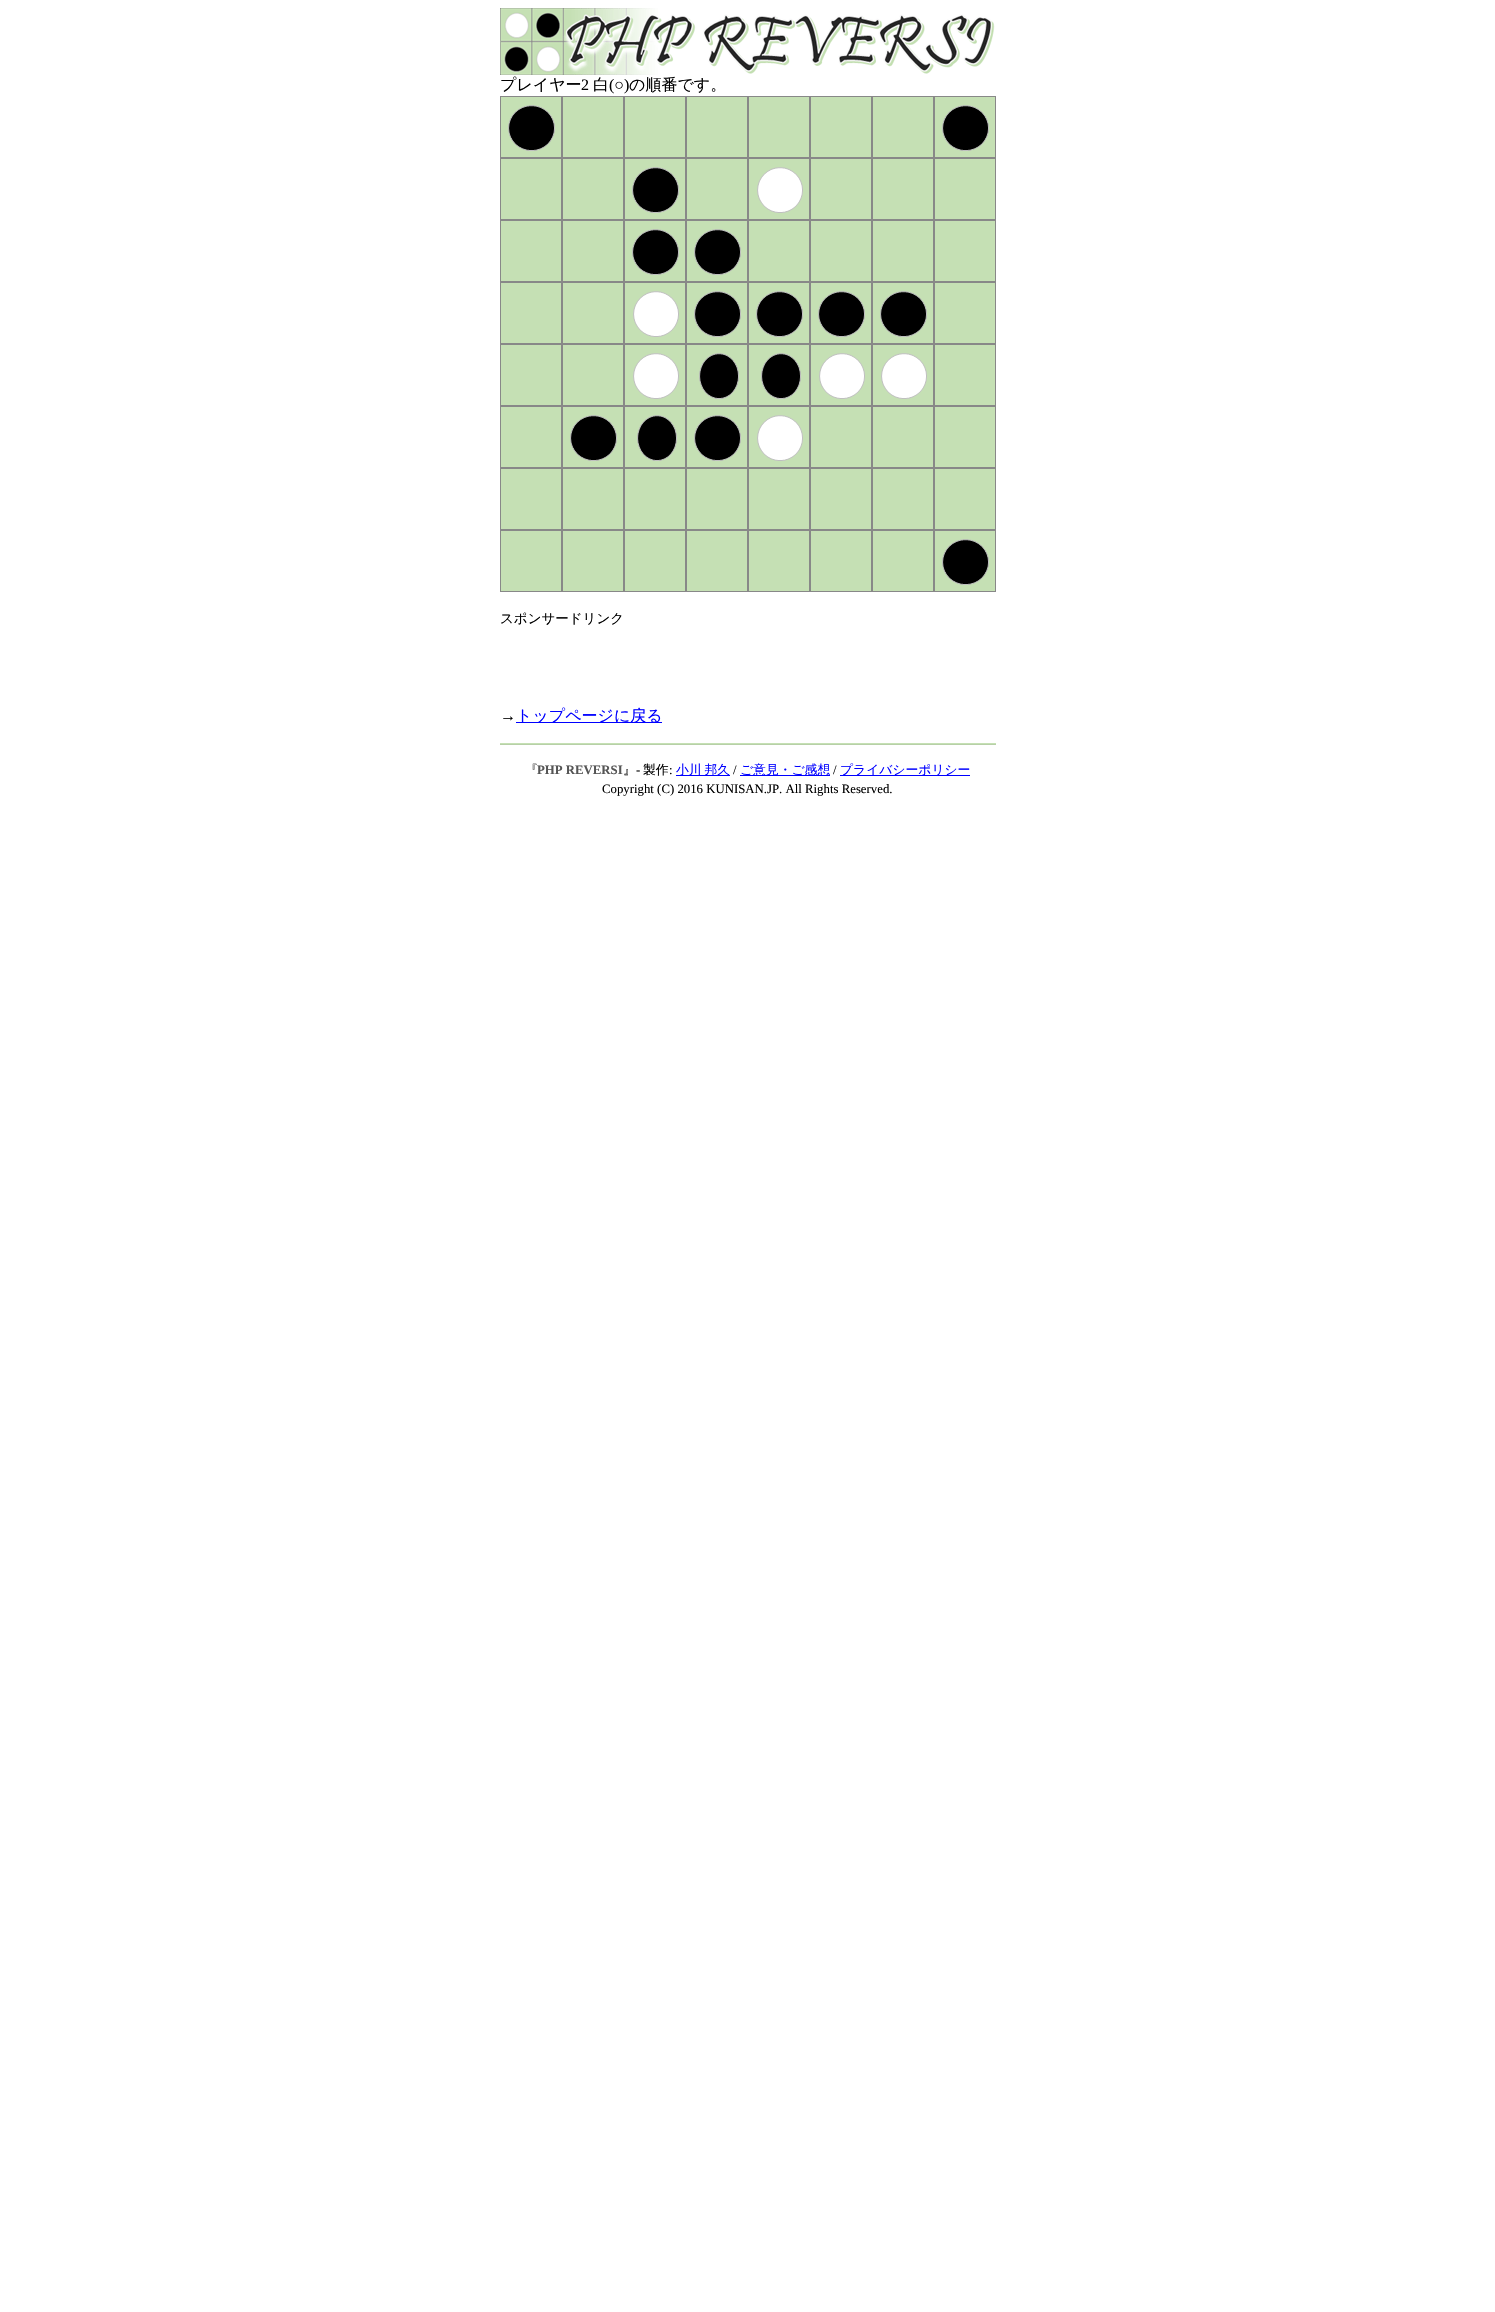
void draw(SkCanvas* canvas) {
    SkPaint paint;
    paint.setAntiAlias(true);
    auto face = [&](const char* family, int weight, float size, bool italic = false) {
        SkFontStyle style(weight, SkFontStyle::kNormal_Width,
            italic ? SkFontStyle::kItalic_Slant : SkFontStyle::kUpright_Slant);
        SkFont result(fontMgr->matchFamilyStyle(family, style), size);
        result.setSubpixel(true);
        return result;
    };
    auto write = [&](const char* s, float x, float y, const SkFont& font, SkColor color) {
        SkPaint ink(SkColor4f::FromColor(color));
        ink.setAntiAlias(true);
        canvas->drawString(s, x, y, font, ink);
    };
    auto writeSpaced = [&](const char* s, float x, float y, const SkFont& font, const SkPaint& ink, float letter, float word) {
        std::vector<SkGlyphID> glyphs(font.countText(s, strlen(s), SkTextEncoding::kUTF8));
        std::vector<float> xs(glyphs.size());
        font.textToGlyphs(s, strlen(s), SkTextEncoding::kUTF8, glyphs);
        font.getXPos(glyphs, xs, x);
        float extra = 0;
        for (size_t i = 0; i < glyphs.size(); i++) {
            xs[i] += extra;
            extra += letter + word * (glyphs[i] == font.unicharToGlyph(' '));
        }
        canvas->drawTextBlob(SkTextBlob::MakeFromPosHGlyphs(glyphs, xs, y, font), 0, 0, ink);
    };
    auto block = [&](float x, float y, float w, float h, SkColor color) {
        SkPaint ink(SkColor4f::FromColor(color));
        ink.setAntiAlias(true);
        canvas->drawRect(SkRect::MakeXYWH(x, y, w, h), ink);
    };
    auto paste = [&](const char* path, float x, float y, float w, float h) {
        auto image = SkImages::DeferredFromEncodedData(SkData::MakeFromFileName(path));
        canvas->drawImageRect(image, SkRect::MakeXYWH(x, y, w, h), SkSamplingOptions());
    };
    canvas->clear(SK_ColorWHITE);
    paste("pic1.png", 500, 8, 495, 67);
    auto kFont1 = face("WenQuanYi Zen Hei", 500, 16);
    write("プレイヤー", 500, 90, kFont1, SK_ColorBLACK);
    auto kFont2 = face("Liberation Serif", 400, 16);
    write("2", 581, 90, kFont2, SK_ColorBLACK);
    write("白", 593, 90, kFont1, SK_ColorBLACK);
    write("(○)", 609, 90, kFont2, SK_ColorBLACK);
    write("の順番です。", 629, 90, kFont1, SK_ColorBLACK);
    paint.setStyle(SkPaint::kStroke_Style);
    paint.setStrokeWidth(1);
    paint.setColor(SkColorSetRGB(136, 136, 136));
    canvas->drawRect(SkRect::MakeXYWH(500.5f, 96.5f, 61, 61), paint);
    canvas->drawRect(SkRect::MakeXYWH(562.5f, 96.5f, 61, 61), paint);
    canvas->drawRect(SkRect::MakeXYWH(624.5f, 96.5f, 61, 61), paint);
    canvas->drawRect(SkRect::MakeXYWH(686.5f, 96.5f, 61, 61), paint);
    canvas->drawRect(SkRect::MakeXYWH(748.5f, 96.5f, 61, 61), paint);
    canvas->drawRect(SkRect::MakeXYWH(810.5f, 96.5f, 61, 61), paint);
    canvas->drawRect(SkRect::MakeXYWH(872.5f, 96.5f, 61, 61), paint);
    canvas->drawRect(SkRect::MakeXYWH(934.5f, 96.5f, 61, 61), paint);
    paste("pic2.png", 501, 97, 60, 60);
    block(563, 97, 60, 60, SkColorSetRGB(197, 224, 180));
    block(625, 97, 60, 60, SkColorSetRGB(197, 224, 180));
    block(687, 97, 60, 60, SkColorSetRGB(197, 224, 180));
    block(749, 97, 60, 60, SkColorSetRGB(197, 224, 180));
    block(811, 97, 60, 60, SkColorSetRGB(197, 224, 180));
    block(873, 97, 60, 60, SkColorSetRGB(197, 224, 180));
    paste("pic2.png", 935, 97, 60, 60);
    canvas->drawRect(SkRect::MakeXYWH(500.5f, 158.5f, 61, 61), paint);
    canvas->drawRect(SkRect::MakeXYWH(562.5f, 158.5f, 61, 61), paint);
    canvas->drawRect(SkRect::MakeXYWH(624.5f, 158.5f, 61, 61), paint);
    canvas->drawRect(SkRect::MakeXYWH(686.5f, 158.5f, 61, 61), paint);
    canvas->drawRect(SkRect::MakeXYWH(748.5f, 158.5f, 61, 61), paint);
    canvas->drawRect(SkRect::MakeXYWH(810.5f, 158.5f, 61, 61), paint);
    canvas->drawRect(SkRect::MakeXYWH(872.5f, 158.5f, 61, 61), paint);
    canvas->drawRect(SkRect::MakeXYWH(934.5f, 158.5f, 61, 61), paint);
    block(501, 159, 60, 60, SkColorSetRGB(197, 224, 180));
    block(563, 159, 60, 60, SkColorSetRGB(197, 224, 180));
    paste("pic2.png", 625, 159, 60, 60);
    block(687, 159, 60, 60, SkColorSetRGB(197, 224, 180));
    paste("pic3.png", 749, 159, 60, 60);
    block(811, 159, 60, 60, SkColorSetRGB(197, 224, 180));
    block(873, 159, 60, 60, SkColorSetRGB(197, 224, 180));
    block(935, 159, 60, 60, SkColorSetRGB(197, 224, 180));
    canvas->drawRect(SkRect::MakeXYWH(500.5f, 220.5f, 61, 61), paint);
    canvas->drawRect(SkRect::MakeXYWH(562.5f, 220.5f, 61, 61), paint);
    canvas->drawRect(SkRect::MakeXYWH(624.5f, 220.5f, 61, 61), paint);
    canvas->drawRect(SkRect::MakeXYWH(686.5f, 220.5f, 61, 61), paint);
    canvas->drawRect(SkRect::MakeXYWH(748.5f, 220.5f, 61, 61), paint);
    canvas->drawRect(SkRect::MakeXYWH(810.5f, 220.5f, 61, 61), paint);
    canvas->drawRect(SkRect::MakeXYWH(872.5f, 220.5f, 61, 61), paint);
    canvas->drawRect(SkRect::MakeXYWH(934.5f, 220.5f, 61, 61), paint);
    block(501, 221, 60, 60, SkColorSetRGB(197, 224, 180));
    block(563, 221, 60, 60, SkColorSetRGB(197, 224, 180));
    paste("pic2.png", 625, 221, 60, 60);
    paste("pic2.png", 687, 221, 60, 60);
    block(749, 221, 60, 60, SkColorSetRGB(197, 224, 180));
    block(811, 221, 60, 60, SkColorSetRGB(197, 224, 180));
    block(873, 221, 60, 60, SkColorSetRGB(197, 224, 180));
    block(935, 221, 60, 60, SkColorSetRGB(197, 224, 180));
    canvas->drawRect(SkRect::MakeXYWH(500.5f, 282.5f, 61, 61), paint);
    canvas->drawRect(SkRect::MakeXYWH(562.5f, 282.5f, 61, 61), paint);
    canvas->drawRect(SkRect::MakeXYWH(624.5f, 282.5f, 61, 61), paint);
    canvas->drawRect(SkRect::MakeXYWH(686.5f, 282.5f, 61, 61), paint);
    canvas->drawRect(SkRect::MakeXYWH(748.5f, 282.5f, 61, 61), paint);
    canvas->drawRect(SkRect::MakeXYWH(810.5f, 282.5f, 61, 61), paint);
    canvas->drawRect(SkRect::MakeXYWH(872.5f, 282.5f, 61, 61), paint);
    canvas->drawRect(SkRect::MakeXYWH(934.5f, 282.5f, 61, 61), paint);
    block(501, 283, 60, 60, SkColorSetRGB(197, 224, 180));
    block(563, 283, 60, 60, SkColorSetRGB(197, 224, 180));
    paste("pic3.png", 625, 283, 60, 60);
    paste("pic2.png", 687, 283, 60, 60);
    paste("pic2.png", 749, 283, 60, 60);
    paste("pic2.png", 811, 283, 60, 60);
    paste("pic2.png", 873, 283, 60, 60);
    block(935, 283, 60, 60, SkColorSetRGB(197, 224, 180));
    canvas->drawRect(SkRect::MakeXYWH(500.5f, 344.5f, 61, 61), paint);
    canvas->drawRect(SkRect::MakeXYWH(562.5f, 344.5f, 61, 61), paint);
    canvas->drawRect(SkRect::MakeXYWH(624.5f, 344.5f, 61, 61), paint);
    canvas->drawRect(SkRect::MakeXYWH(686.5f, 344.5f, 61, 61), paint);
    canvas->drawRect(SkRect::MakeXYWH(748.5f, 344.5f, 61, 61), paint);
    canvas->drawRect(SkRect::MakeXYWH(810.5f, 344.5f, 61, 61), paint);
    canvas->drawRect(SkRect::MakeXYWH(872.5f, 344.5f, 61, 61), paint);
    canvas->drawRect(SkRect::MakeXYWH(934.5f, 344.5f, 61, 61), paint);
    block(501, 345, 60, 60, SkColorSetRGB(197, 224, 180));
    block(563, 345, 60, 60, SkColorSetRGB(197, 224, 180));
    paste("pic3.png", 625, 345, 60, 60);
    paste("pic4.png", 687, 345, 60, 60);
    paste("pic4.png", 749, 345, 60, 60);
    paste("pic3.png", 811, 345, 60, 60);
    paste("pic3.png", 873, 345, 60, 60);
    block(935, 345, 60, 60, SkColorSetRGB(197, 224, 180));
    canvas->drawRect(SkRect::MakeXYWH(500.5f, 406.5f, 61, 61), paint);
    canvas->drawRect(SkRect::MakeXYWH(562.5f, 406.5f, 61, 61), paint);
    canvas->drawRect(SkRect::MakeXYWH(624.5f, 406.5f, 61, 61), paint);
    canvas->drawRect(SkRect::MakeXYWH(686.5f, 406.5f, 61, 61), paint);
    canvas->drawRect(SkRect::MakeXYWH(748.5f, 406.5f, 61, 61), paint);
    canvas->drawRect(SkRect::MakeXYWH(810.5f, 406.5f, 61, 61), paint);
    canvas->drawRect(SkRect::MakeXYWH(872.5f, 406.5f, 61, 61), paint);
    canvas->drawRect(SkRect::MakeXYWH(934.5f, 406.5f, 61, 61), paint);
    block(501, 407, 60, 60, SkColorSetRGB(197, 224, 180));
    paste("pic2.png", 563, 407, 60, 60);
    paste("pic4.png", 625, 407, 60, 60);
    paste("pic5.png", 687, 407, 60, 60);
    paste("pic3.png", 749, 407, 60, 60);
    block(811, 407, 60, 60, SkColorSetRGB(197, 224, 180));
    block(873, 407, 60, 60, SkColorSetRGB(197, 224, 180));
    block(935, 407, 60, 60, SkColorSetRGB(197, 224, 180));
    canvas->drawRect(SkRect::MakeXYWH(500.5f, 468.5f, 61, 61), paint);
    canvas->drawRect(SkRect::MakeXYWH(562.5f, 468.5f, 61, 61), paint);
    canvas->drawRect(SkRect::MakeXYWH(624.5f, 468.5f, 61, 61), paint);
    canvas->drawRect(SkRect::MakeXYWH(686.5f, 468.5f, 61, 61), paint);
    canvas->drawRect(SkRect::MakeXYWH(748.5f, 468.5f, 61, 61), paint);
    canvas->drawRect(SkRect::MakeXYWH(810.5f, 468.5f, 61, 61), paint);
    canvas->drawRect(SkRect::MakeXYWH(872.5f, 468.5f, 61, 61), paint);
    canvas->drawRect(SkRect::MakeXYWH(934.5f, 468.5f, 61, 61), paint);
    block(501, 469, 60, 60, SkColorSetRGB(197, 224, 180));
    block(563, 469, 60, 60, SkColorSetRGB(197, 224, 180));
    block(625, 469, 60, 60, SkColorSetRGB(197, 224, 180));
    block(687, 469, 60, 60, SkColorSetRGB(197, 224, 180));
    block(749, 469, 60, 60, SkColorSetRGB(197, 224, 180));
    block(811, 469, 60, 60, SkColorSetRGB(197, 224, 180));
    block(873, 469, 60, 60, SkColorSetRGB(197, 224, 180));
    block(935, 469, 60, 60, SkColorSetRGB(197, 224, 180));
    canvas->drawRect(SkRect::MakeXYWH(500.5f, 530.5f, 61, 61), paint);
    canvas->drawRect(SkRect::MakeXYWH(562.5f, 530.5f, 61, 61), paint);
    canvas->drawRect(SkRect::MakeXYWH(624.5f, 530.5f, 61, 61), paint);
    canvas->drawRect(SkRect::MakeXYWH(686.5f, 530.5f, 61, 61), paint);
    canvas->drawRect(SkRect::MakeXYWH(748.5f, 530.5f, 61, 61), paint);
    canvas->drawRect(SkRect::MakeXYWH(810.5f, 530.5f, 61, 61), paint);
    canvas->drawRect(SkRect::MakeXYWH(872.5f, 530.5f, 61, 61), paint);
    canvas->drawRect(SkRect::MakeXYWH(934.5f, 530.5f, 61, 61), paint);
    block(501, 531, 60, 60, SkColorSetRGB(197, 224, 180));
    block(563, 531, 60, 60, SkColorSetRGB(197, 224, 180));
    block(625, 531, 60, 60, SkColorSetRGB(197, 224, 180));
    block(687, 531, 60, 60, SkColorSetRGB(197, 224, 180));
    block(749, 531, 60, 60, SkColorSetRGB(197, 224, 180));
    block(811, 531, 60, 60, SkColorSetRGB(197, 224, 180));
    block(873, 531, 60, 60, SkColorSetRGB(197, 224, 180));
    paste("pic2.png", 935, 531, 60, 60);
    auto kFont3 = face("WenQuanYi Zen Hei", 500, 13.5f);
    write("スポンサードリンク", 500, 623, kFont3, SK_ColorBLACK);
    write("→", 500, 721, kFont2, SK_ColorBLACK);
    block(516, 722, 146, 1, SkColorSetRGB(0, 0, 255));
    write("トップページに戻る", 516, 721, kFont1, SkColorSetRGB(0, 0, 255));
    paste("pic6.png", 500, 743, 496, 2);
    auto kFont4 = face("WenQuanYi Zen Hei", 500, 12.8f);
    write("『", 525, 774, kFont4, SK_ColorBLACK);
    auto kFont5 = face("Liberation Serif", 700, 12.8f);
    write("PHP REVERSI", 537, 774, kFont5, SkColorSetRGB(85, 85, 85));
    write("』", 623, 774, kFont4, SK_ColorBLACK);
    auto kFont6 = face("Liberation Serif", 400, 12.8f);
    write("-", 636, 774, kFont6, SK_ColorBLACK);
    write("製作", 643, 774, kFont4, SK_ColorBLACK);
    write(":", 669, 774, kFont6, SK_ColorBLACK);
    block(676, 775, 54, 1, SkColorSetRGB(0, 0, 255));
    paint.setStyle(SkPaint::kFill_Style);
    paint.setColor(SkColorSetRGB(0, 0, 255));
    writeSpaced("小川 邦久", 676, 774, kFont4, paint, 0, -1);
    write("/", 733, 774, kFont6, SK_ColorBLACK);
    block(740, 775, 90, 1, SkColorSetRGB(0, 0, 255));
    write("ご意見・ご感想", 740, 774, kFont4, SkColorSetRGB(0, 0, 255));
    write("/", 833, 774, kFont6, SK_ColorBLACK);
    block(840, 775, 130, 1, SkColorSetRGB(0, 0, 255));
    write("プライバシーポリシー", 840, 774, kFont4, SkColorSetRGB(0, 0, 255));
    write("Copyright (C) 2016 KUNISAN.JP. All Rights Reserved.", 602, 793, kFont6, SK_ColorBLACK);
}
